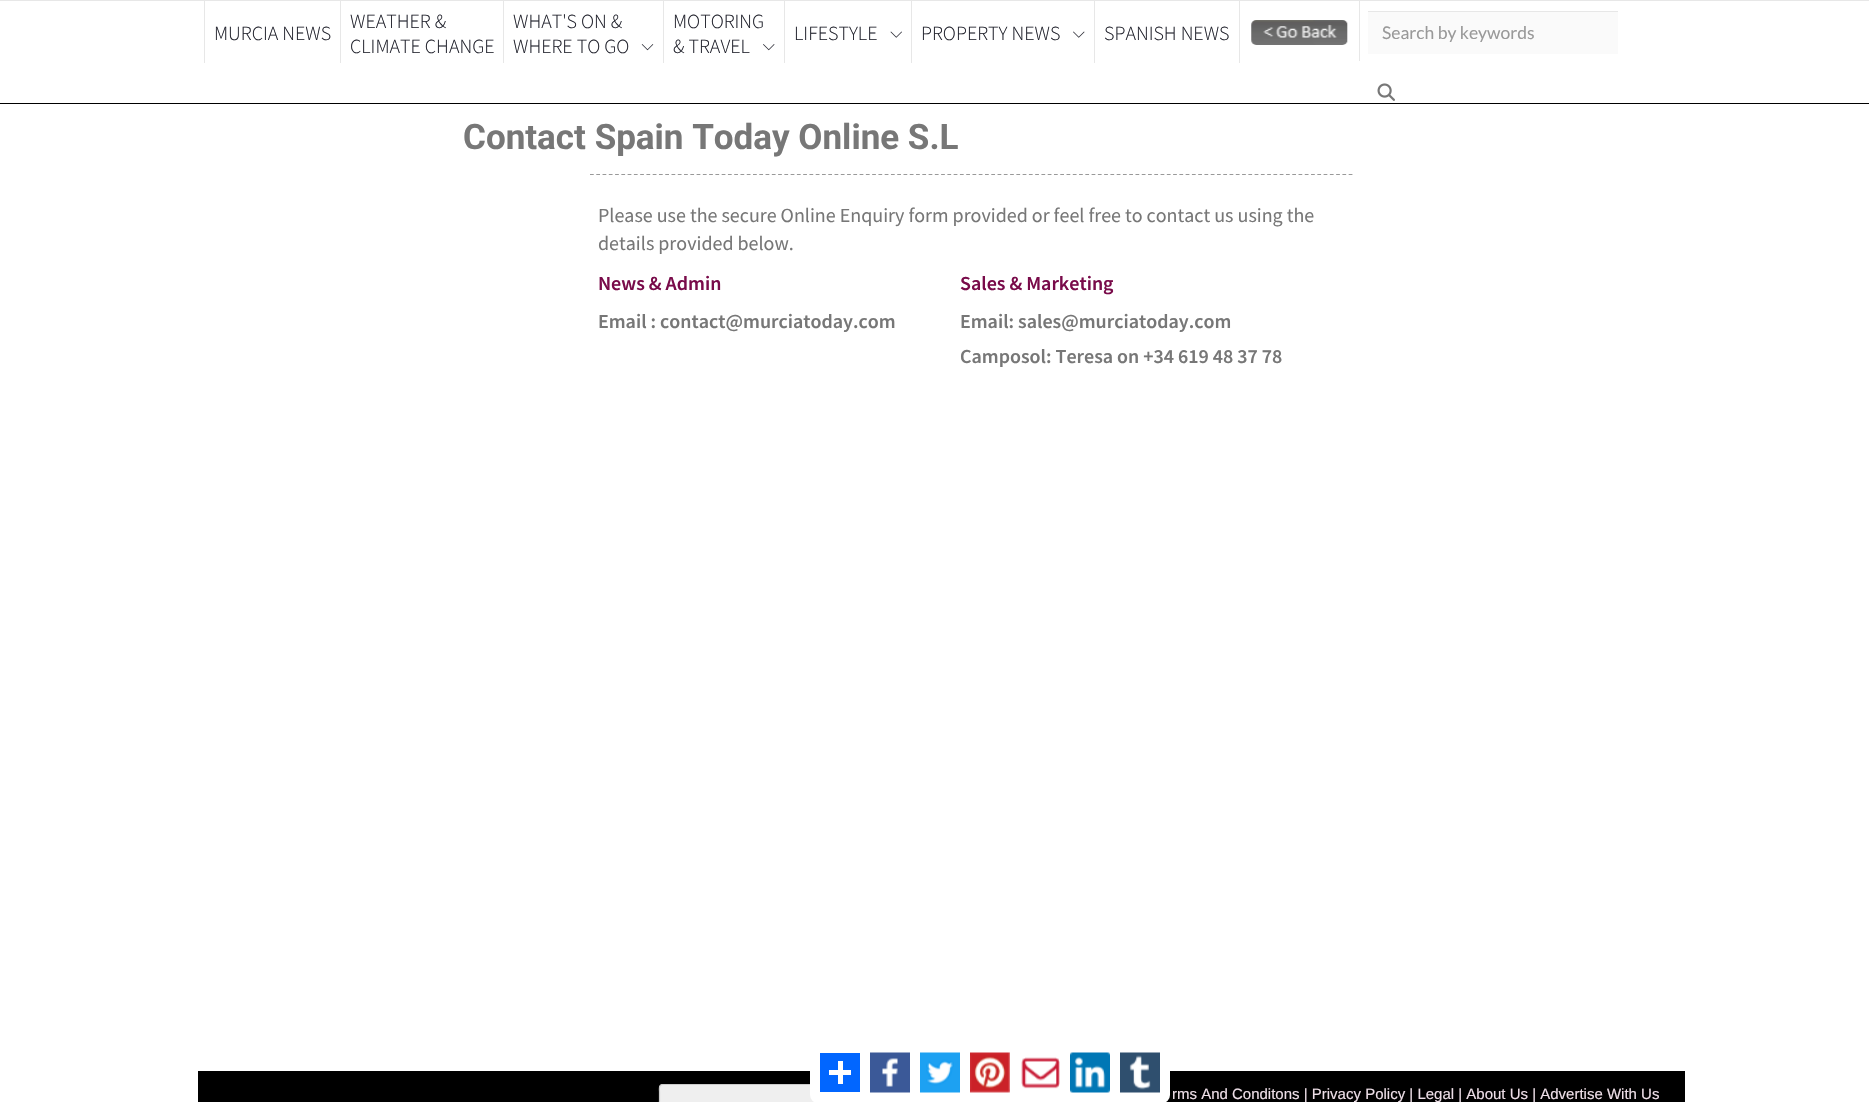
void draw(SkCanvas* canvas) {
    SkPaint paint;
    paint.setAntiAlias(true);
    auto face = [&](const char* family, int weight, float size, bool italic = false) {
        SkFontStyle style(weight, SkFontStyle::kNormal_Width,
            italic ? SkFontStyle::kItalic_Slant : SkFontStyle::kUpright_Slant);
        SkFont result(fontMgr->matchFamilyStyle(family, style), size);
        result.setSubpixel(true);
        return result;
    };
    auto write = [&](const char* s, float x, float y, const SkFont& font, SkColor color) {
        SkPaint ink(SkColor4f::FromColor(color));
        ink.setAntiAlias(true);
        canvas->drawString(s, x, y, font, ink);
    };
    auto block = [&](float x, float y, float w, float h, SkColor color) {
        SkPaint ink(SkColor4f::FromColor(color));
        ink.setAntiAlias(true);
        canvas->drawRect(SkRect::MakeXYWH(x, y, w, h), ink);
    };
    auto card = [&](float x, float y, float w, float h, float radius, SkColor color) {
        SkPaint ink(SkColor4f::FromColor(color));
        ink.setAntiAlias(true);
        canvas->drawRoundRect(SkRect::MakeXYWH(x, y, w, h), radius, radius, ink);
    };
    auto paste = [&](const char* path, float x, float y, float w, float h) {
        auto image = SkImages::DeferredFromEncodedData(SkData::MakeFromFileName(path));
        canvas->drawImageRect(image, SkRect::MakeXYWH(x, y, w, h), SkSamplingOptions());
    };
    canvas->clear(SK_ColorWHITE);
    block(0, 0, 1869, 1, SkColorSetRGB(231, 231, 231));
    block(0, 103, 1869, 1, SK_ColorBLACK);
    block(204, 1, 1, 62, SkColorSetRGB(231, 231, 231));
    auto kFont1 = face("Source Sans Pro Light", 300, 20);
    write("MURCIA NEWS", 214, 40, kFont1, SkColorSetRGB(36, 37, 47));
    block(340, 1, 1, 62, SkColorSetRGB(231, 231, 231));
    write("WEATHER &", 350, 28, kFont1, SkColorSetRGB(36, 37, 47));
    write("CLIMATE CHANGE", 350, 53, kFont1, SkColorSetRGB(36, 37, 47));
    block(503, 1, 1, 62, SkColorSetRGB(231, 231, 231));
    write("WHAT'S ON &", 513, 28, kFont1, SkColorSetRGB(36, 37, 47));
    write("WHERE TO GO", 513, 53, kFont1, SkColorSetRGB(36, 37, 47));
    paste("pic1.png", 641, 44, 13, 7);
    block(663, 1, 1, 62, SkColorSetRGB(231, 231, 231));
    write("MOTORING", 673, 28, kFont1, SkColorSetRGB(36, 37, 47));
    write("& TRAVEL", 673, 53, kFont1, SkColorSetRGB(36, 37, 47));
    paste("pic2.png", 763, 44, 12, 7);
    block(784, 1, 1, 62, SkColorSetRGB(231, 231, 231));
    write("LIFESTYLE", 794, 40, kFont1, SkColorSetRGB(36, 37, 47));
    paste("pic3.png", 890, 31, 12, 7);
    block(911, 1, 1, 62, SkColorSetRGB(231, 231, 231));
    write("PROPERTY NEWS", 921, 40, kFont1, SkColorSetRGB(36, 37, 47));
    paste("pic4.png", 1073, 31, 12, 7);
    block(1094, 1, 1, 62, SkColorSetRGB(231, 231, 231));
    write("SPANISH NEWS", 1104, 40, kFont1, SkColorSetRGB(36, 37, 47));
    block(1239, 1, 1, 62, SkColorSetRGB(231, 231, 231));
    paste("pic5.png", 1251, 20, 97, 25);
    block(1359, 1, 1, 60, SkColorSetRGB(231, 231, 231));
    block(1368, 12, 250, 42, SkColorSetRGB(250, 250, 250));
    block(1368, 11, 250, 1, SkColorSetRGB(231, 231, 231));
    auto kFont2 = face("Lato", 400, 17.5f);
    write("Search by keywords", 1382, 39, kFont2, SkColorSetRGB(153, 153, 153));
    paste("pic6.png", 1377, 83, 18, 18);
    auto kFont3 = face("Roboto", 700, 35);
    write("Contact Spain Today Online S.L", 463, 149, kFont3, SkColorSetRGB(119, 119, 119));
    paint.setStyle(SkPaint::kStroke_Style);
    paint.setStrokeWidth(1.2f);
    paint.setColor(SkColorSetRGB(153, 153, 153));
    paint.setPathEffect(SkDashPathEffect::Make({{3.75f, 2.52f}}, 0));
    canvas->drawPath(SkPathBuilder().moveTo(590, 174.5f).lineTo(1352.5f, 174.5f).detach(), paint);
    paint.setPathEffect(nullptr);
    auto kFont4 = face("Source Sans Pro", 400, 20);
    write("Please use the secure Online Enquiry form provided or feel free to contact us using the", 598, 222, kFont4, SkColorSetRGB(119, 119, 119));
    write("details provided below.", 598, 250, kFont4, SkColorSetRGB(119, 119, 119));
    auto kFont5 = face("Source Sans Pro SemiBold", 600, 20);
    write("News & Admin", 598, 290, kFont5, SkColorSetRGB(121, 11, 74));
    write("Sales & Marketing", 960, 290, kFont5, SkColorSetRGB(121, 11, 74));
    write("Email : contact@murciatoday.com", 598, 328, kFont5, SkColorSetRGB(119, 119, 119));
    write("Email: sales@murciatoday.com", 960, 328, kFont5, SkColorSetRGB(119, 119, 119));
    write("Camposol: Teresa on +34 619 48 37 78", 960, 363, kFont5, SkColorSetRGB(119, 119, 119));
    block(198, 1071, 1487, 31, SK_ColorBLACK);
    card(659, 1084, 159, 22, 4, SkColorSetRGB(239, 239, 239));
    paint.setColor(SkColorSetRGB(204, 204, 204));
    canvas->drawPath(SkPathBuilder().moveTo(660.5f, 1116).cubicTo(658, 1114, 659.5f, 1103.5f, 659.5f, 1100.5f).lineTo(659.5f, 1092).cubicTo(659.5f, 1089.5f, 658.5f, 1084.5f, 662.5f, 1084.5f).lineTo(814, 1084.5f).cubicTo(817.5f, 1084.5f, 817, 1089.5f, 817, 1092).lineTo(817, 1100.5f).cubicTo(817, 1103.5f, 818, 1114, 816, 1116).detach(), paint);
    auto kFont6 = face("Liberation Sans", 400, 15);
    write("rms And Conditons | Privacy Policy | Legal | About Us | Advertise With Us", 1172, 1099, kFont6, SkColorSetRGB(237, 222, 231));
    card(810, 1043, 360, 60, 8, SK_ColorWHITE);
    block(820, 1053, 40, 39, SkColorSetRGB(1, 102, 255));
    block(838, 1061, 5, 23, SK_ColorWHITE);
    block(829, 1070, 22, 5, SK_ColorWHITE);
    paste("pic7.png", 870, 1052, 40, 41);
    paste("pic8.png", 920, 1052, 40, 41);
    paste("pic9.png", 970, 1052, 40, 41);
    paste("pic10.png", 1021, 1057, 39, 32);
    paste("pic11.png", 1070, 1052, 40, 41);
    paste("pic12.png", 1120, 1052, 40, 41);
}
